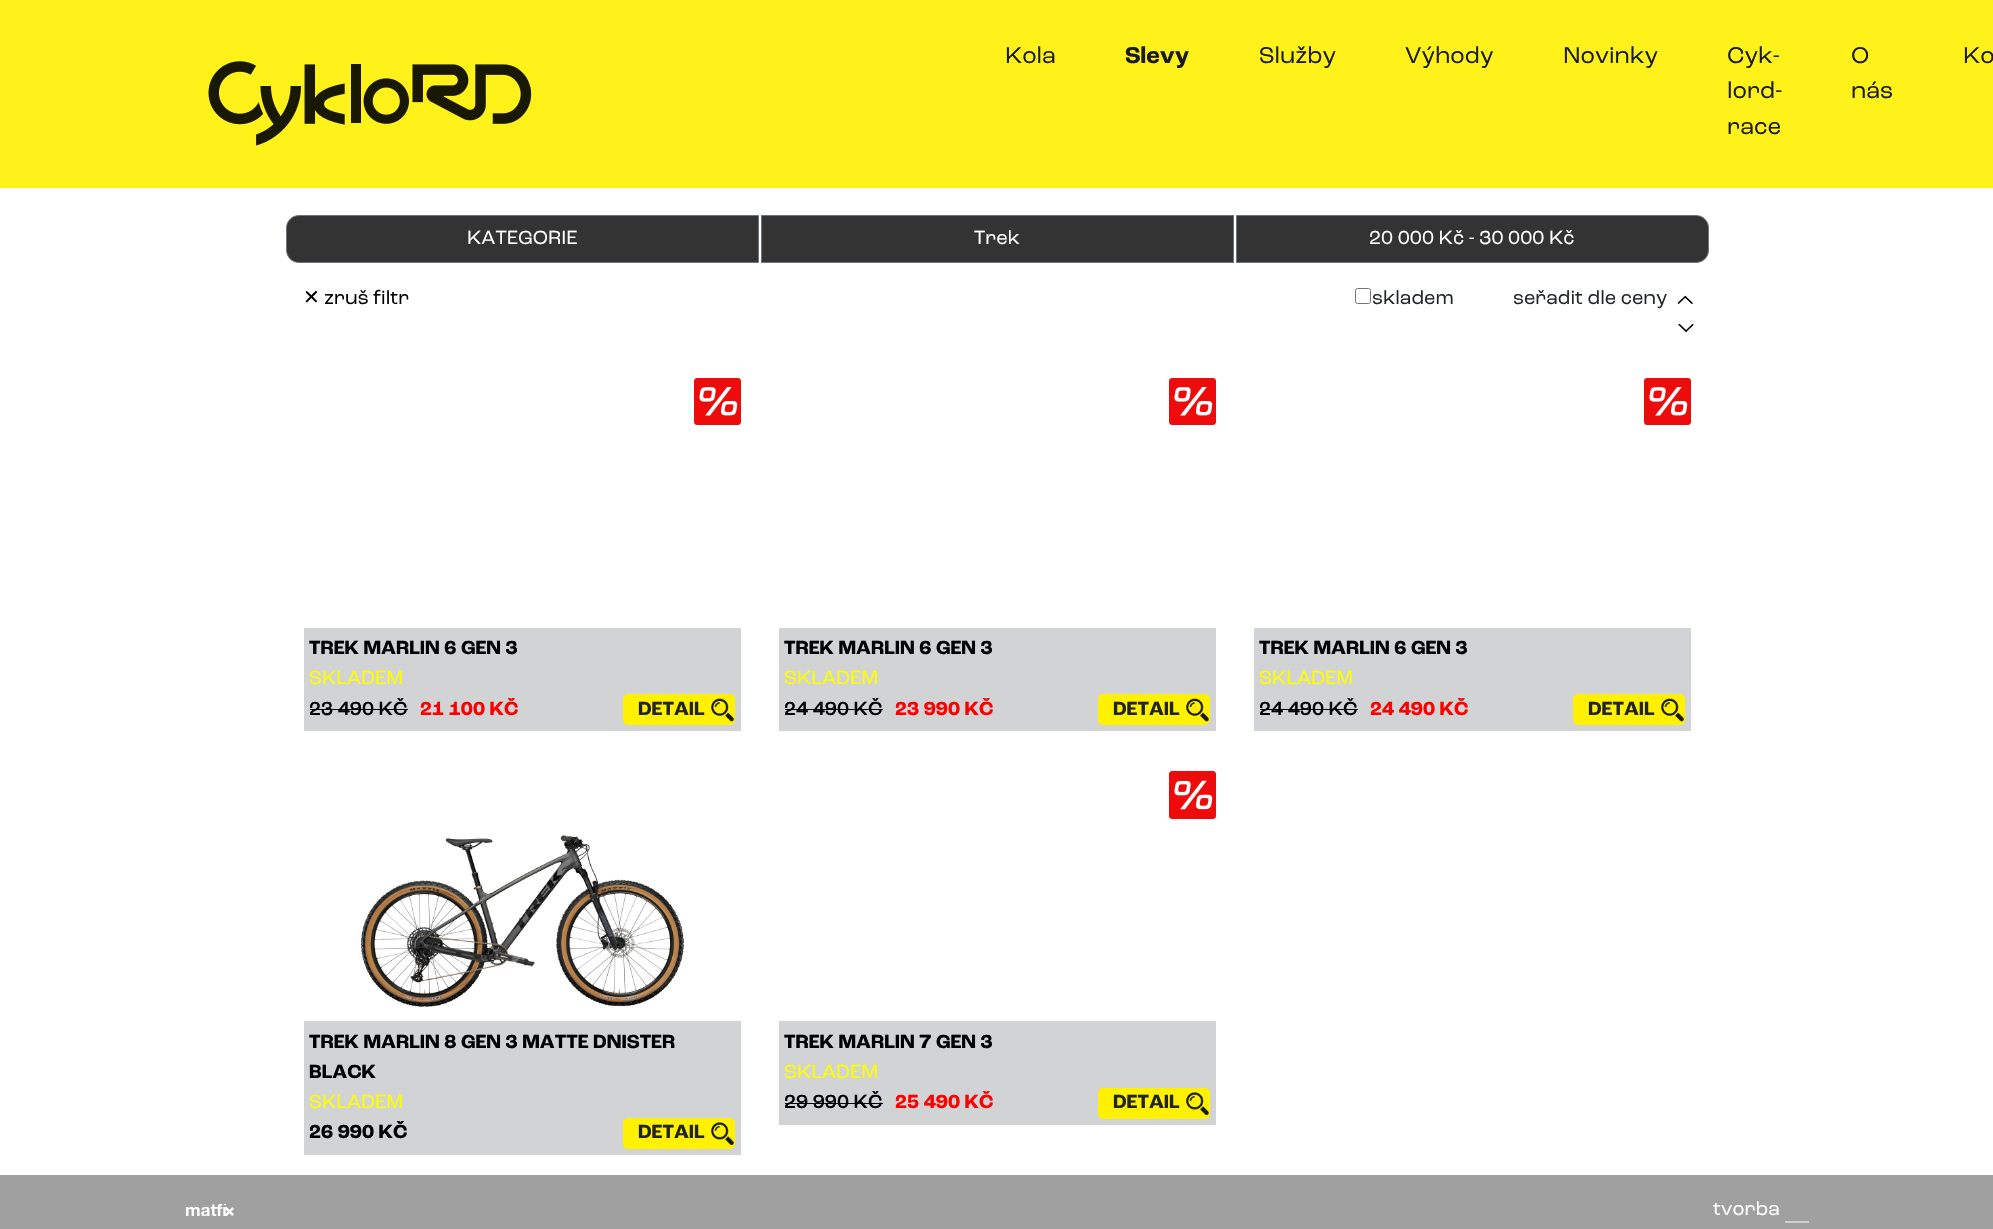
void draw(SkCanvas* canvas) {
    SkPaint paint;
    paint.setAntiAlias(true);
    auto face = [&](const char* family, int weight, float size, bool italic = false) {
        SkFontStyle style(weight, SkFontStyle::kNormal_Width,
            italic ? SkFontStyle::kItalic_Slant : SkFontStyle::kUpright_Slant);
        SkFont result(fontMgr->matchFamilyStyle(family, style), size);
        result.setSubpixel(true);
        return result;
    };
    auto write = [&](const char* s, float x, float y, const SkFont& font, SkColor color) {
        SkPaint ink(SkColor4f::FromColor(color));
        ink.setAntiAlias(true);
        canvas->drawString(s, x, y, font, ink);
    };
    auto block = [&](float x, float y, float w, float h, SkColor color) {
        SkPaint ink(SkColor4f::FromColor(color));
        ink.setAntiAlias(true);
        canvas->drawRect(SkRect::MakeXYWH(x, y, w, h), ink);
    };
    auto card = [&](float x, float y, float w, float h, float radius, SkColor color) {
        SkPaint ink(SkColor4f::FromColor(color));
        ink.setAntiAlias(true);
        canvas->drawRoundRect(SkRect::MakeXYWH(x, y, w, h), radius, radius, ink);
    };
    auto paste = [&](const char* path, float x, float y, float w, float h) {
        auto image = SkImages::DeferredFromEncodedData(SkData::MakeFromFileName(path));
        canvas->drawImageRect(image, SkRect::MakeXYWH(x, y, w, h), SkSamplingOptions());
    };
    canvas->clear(SK_ColorWHITE);
    block(0, 0, 1993, 188, SkColorSetRGB(255, 242, 26));
    paste("pic1.png", 208, 61, 324, 85);
    auto kFont1 = face("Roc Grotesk", 400, 24);
    write("Kola", 1005, 63, kFont1, SkColorSetRGB(26, 26, 26));
    auto kFont2 = face("Roc Grotesk", 700, 24);
    write("Slevy", 1125, 63, kFont2, SkColorSetRGB(26, 26, 26));
    write("Služby", 1259, 63, kFont1, SkColorSetRGB(26, 26, 26));
    write("Výhody", 1405, 63, kFont1, SkColorSetRGB(26, 26, 26));
    write("Novinky", 1563, 63, kFont1, SkColorSetRGB(26, 26, 26));
    write("Cyk-", 1727, 63, kFont1, SkColorSetRGB(26, 26, 26));
    write("lord-", 1727, 98, kFont1, SkColorSetRGB(26, 26, 26));
    write("race", 1727, 134, kFont1, SkColorSetRGB(26, 26, 26));
    write("O", 1851, 63, kFont1, SkColorSetRGB(26, 26, 26));
    write("nás", 1851, 98, kFont1, SkColorSetRGB(26, 26, 26));
    write("Ko", 1963, 63, kFont1, SkColorSetRGB(26, 26, 26));
    paint.setColor(SkColorSetRGB(51, 51, 51));
    canvas->drawPath(SkPathBuilder().moveTo(299, 215.5f).lineTo(758.5f, 215.5f).lineTo(758.5f, 262.5f).lineTo(299, 262.5f).cubicTo(292, 262.5f, 286.5f, 257, 286.5f, 250).lineTo(286.5f, 228).cubicTo(286.5f, 221, 292, 215.5f, 299, 215.5f).close().detach(), paint);
    paint.setStyle(SkPaint::kStroke_Style);
    paint.setStrokeWidth(1);
    paint.setColor(SkColorSetRGB(108, 117, 125));
    canvas->drawPath(SkPathBuilder().moveTo(299, 215.5f).lineTo(758.5f, 215.5f).lineTo(758.5f, 262.5f).lineTo(299, 262.5f).cubicTo(292, 262.5f, 286.5f, 257, 286.5f, 250).lineTo(286.5f, 228).cubicTo(286.5f, 221, 292, 215.5f, 299, 215.5f).close().detach(), paint);
    auto kFont3 = face("Roc Grotesk", 400, 20);
    write("KATEGORIE", 467, 244, kFont3, SK_ColorWHITE);
    paint.setStyle(SkPaint::kFill_Style);
    paint.setColor(SkColorSetRGB(51, 51, 51));
    canvas->drawRect(SkRect::MakeXYWH(761.5f, 215.5f, 472, 47), paint);
    paint.setStyle(SkPaint::kStroke_Style);
    paint.setColor(SkColorSetRGB(108, 117, 125));
    canvas->drawRect(SkRect::MakeXYWH(761.5f, 215.5f, 472, 47), paint);
    write("Trek", 974, 244, kFont3, SK_ColorWHITE);
    paint.setStyle(SkPaint::kFill_Style);
    paint.setColor(SkColorSetRGB(51, 51, 51));
    canvas->drawPath(SkPathBuilder().moveTo(1236.5f, 215.5f).lineTo(1696, 215.5f).cubicTo(1703, 215.5f, 1708.5f, 221, 1708.5f, 228).lineTo(1708.5f, 250).cubicTo(1708.5f, 257, 1703, 262.5f, 1696, 262.5f).lineTo(1236.5f, 262.5f).close().detach(), paint);
    paint.setStyle(SkPaint::kStroke_Style);
    paint.setColor(SkColorSetRGB(108, 117, 125));
    canvas->drawPath(SkPathBuilder().moveTo(1236.5f, 215.5f).lineTo(1696, 215.5f).cubicTo(1703, 215.5f, 1708.5f, 221, 1708.5f, 228).lineTo(1708.5f, 250).cubicTo(1708.5f, 257, 1703, 262.5f, 1696, 262.5f).lineTo(1236.5f, 262.5f).close().detach(), paint);
    write("20 000 Kč - 30 000 Kč", 1369, 244, kFont3, SK_ColorWHITE);
    auto kFont4 = face("DejaVu Sans", 400, 20);
    write("✕", 303, 304, kFont4, SK_ColorBLACK);
    write("zruš filtr", 324, 304, kFont3, SK_ColorBLACK);
    paint.setColor(SkColorSetRGB(118, 118, 118));
    canvas->drawRoundRect(SkRect::MakeXYWH(1355.5f, 288.5f, 15, 15), 2, 2, paint);
    write("skladem", 1372, 304, kFont3, SkColorSetRGB(33, 37, 41));
    write("seřadit dle ceny", 1513, 304, kFont3, SkColorSetRGB(33, 37, 41));
    paste("pic2.png", 1677, 295, 16, 9);
    paste("pic3.png", 1678, 324, 16, 9);
    paste("pic4.png", 694, 378, 47, 47);
    block(304, 628, 437, 103, SkColorSetRGB(209, 211, 212));
    auto kFont5 = face("Roc Grotesk", 700, 20);
    write("TREK MARLIN 6 GEN 3", 309, 654, kFont5, SK_ColorBLACK);
    write("SKLADEM", 309, 684, kFont3, SkColorSetRGB(255, 255, 0));
    auto kFont6 = face("Roc Grotesk", 500, 20);
    write("23 490 KČ", 309, 715, kFont6, SK_ColorBLACK);
    block(310, 709, 98, 1, SK_ColorBLACK);
    write("21 100 KČ", 420, 715, kFont5, SkColorSetRGB(255, 0, 0));
    card(623, 694, 112, 31, 5, SkColorSetRGB(255, 241, 0));
    write("DETAIL", 638, 715, kFont5, SkColorSetRGB(33, 37, 41));
    paste("pic5.png", 711, 698, 23, 24);
    paste("pic4.png", 1169, 378, 47, 47);
    block(779, 628, 437, 103, SkColorSetRGB(209, 211, 212));
    write("TREK MARLIN 6 GEN 3", 784, 654, kFont5, SK_ColorBLACK);
    write("SKLADEM", 784, 684, kFont3, SkColorSetRGB(255, 255, 0));
    write("24 490 KČ", 784, 715, kFont6, SK_ColorBLACK);
    block(785, 709, 98, 1, SK_ColorBLACK);
    write("23 990 KČ", 895, 715, kFont5, SkColorSetRGB(255, 0, 0));
    card(1098, 694, 112, 31, 5, SkColorSetRGB(255, 241, 0));
    write("DETAIL", 1113, 715, kFont5, SkColorSetRGB(33, 37, 41));
    paste("pic6.png", 1186, 698, 23, 24);
    paste("pic4.png", 1644, 378, 47, 47);
    block(1254, 628, 437, 103, SkColorSetRGB(209, 211, 212));
    write("TREK MARLIN 6 GEN 3", 1259, 654, kFont5, SK_ColorBLACK);
    write("SKLADEM", 1259, 684, kFont3, SkColorSetRGB(255, 255, 0));
    write("24 490 KČ", 1259, 715, kFont6, SK_ColorBLACK);
    block(1260, 709, 98, 1, SK_ColorBLACK);
    write("24 490 KČ", 1370, 715, kFont5, SkColorSetRGB(255, 0, 0));
    card(1573, 694, 112, 31, 5, SkColorSetRGB(255, 241, 0));
    write("DETAIL", 1588, 715, kFont5, SkColorSetRGB(33, 37, 41));
    paste("pic6.png", 1661, 698, 23, 24);
    paste("pic7.png", 360, 835, 325, 172);
    block(304, 1021, 437, 134, SkColorSetRGB(209, 211, 212));
    write("TREK MARLIN 8 GEN 3 MATTE DNISTER", 309, 1048, kFont5, SK_ColorBLACK);
    write("BLACK", 309, 1078, kFont5, SK_ColorBLACK);
    write("SKLADEM", 309, 1108, kFont3, SkColorSetRGB(255, 255, 0));
    write("26 990 KČ", 309, 1138, kFont5, SK_ColorBLACK);
    card(623, 1118, 112, 31, 5, SkColorSetRGB(255, 241, 0));
    write("DETAIL", 638, 1138, kFont5, SkColorSetRGB(33, 37, 41));
    paste("pic8.png", 711, 1122, 23, 23);
    paste("pic9.png", 1169, 771, 47, 48);
    block(779, 1021, 437, 104, SkColorSetRGB(209, 211, 212));
    write("TREK MARLIN 7 GEN 3", 784, 1048, kFont5, SK_ColorBLACK);
    write("SKLADEM", 784, 1078, kFont3, SkColorSetRGB(255, 255, 0));
    write("29 990 KČ", 784, 1108, kFont6, SK_ColorBLACK);
    block(785, 1103, 98, 1, SK_ColorBLACK);
    write("25 490 KČ", 895, 1108, kFont5, SkColorSetRGB(255, 0, 0));
    card(1098, 1088, 112, 31, 5, SkColorSetRGB(255, 241, 0));
    write("DETAIL", 1113, 1108, kFont5, SkColorSetRGB(33, 37, 41));
    paste("pic10.png", 1186, 1092, 23, 23);
    block(0, 1175, 1993, 54, SkColorSetRGB(160, 160, 160));
    paste("pic11.png", 186, 1204, 48, 12);
    write("tvorba", 1713, 1215, kFont3, SK_ColorWHITE);
    canvas->save();
    canvas->clipRect(SkRect::MakeXYWH(1785, 1198, 24, 25));
    paint.setStyle(SkPaint::kFill_Style);
    paint.setColor(SK_ColorWHITE);
    canvas->drawPath(SkPathBuilder().moveTo(1809, 1197.5f).lineTo(1809, 1221.5f).lineTo(1785, 1221.5f).lineTo(1785, 1222.5f).lineTo(1810, 1222.5f).lineTo(1810, 1197.5f).close().detach(), paint);
    canvas->restore();
}
